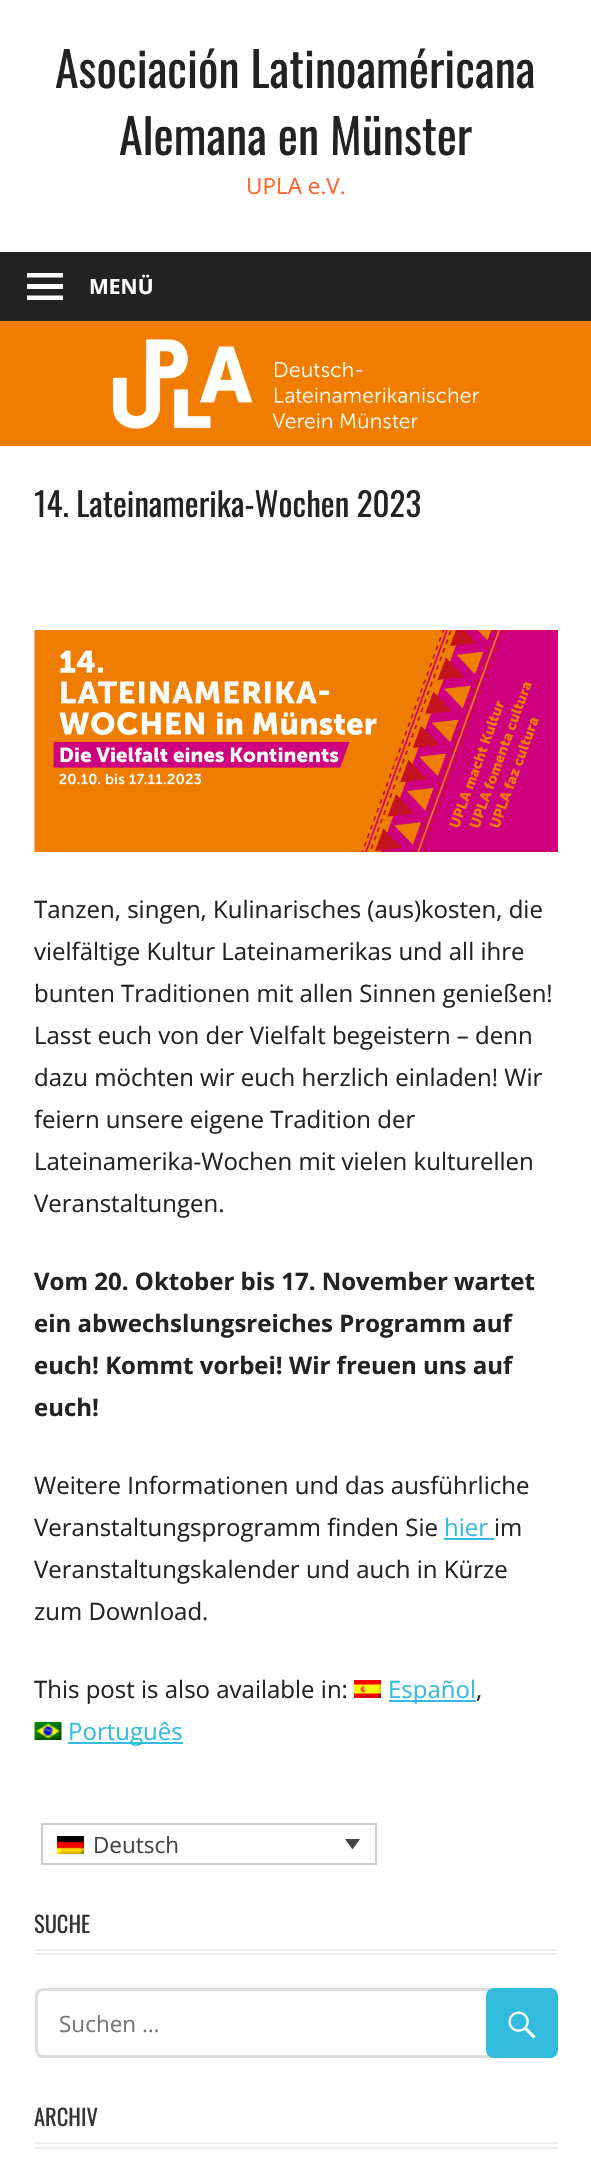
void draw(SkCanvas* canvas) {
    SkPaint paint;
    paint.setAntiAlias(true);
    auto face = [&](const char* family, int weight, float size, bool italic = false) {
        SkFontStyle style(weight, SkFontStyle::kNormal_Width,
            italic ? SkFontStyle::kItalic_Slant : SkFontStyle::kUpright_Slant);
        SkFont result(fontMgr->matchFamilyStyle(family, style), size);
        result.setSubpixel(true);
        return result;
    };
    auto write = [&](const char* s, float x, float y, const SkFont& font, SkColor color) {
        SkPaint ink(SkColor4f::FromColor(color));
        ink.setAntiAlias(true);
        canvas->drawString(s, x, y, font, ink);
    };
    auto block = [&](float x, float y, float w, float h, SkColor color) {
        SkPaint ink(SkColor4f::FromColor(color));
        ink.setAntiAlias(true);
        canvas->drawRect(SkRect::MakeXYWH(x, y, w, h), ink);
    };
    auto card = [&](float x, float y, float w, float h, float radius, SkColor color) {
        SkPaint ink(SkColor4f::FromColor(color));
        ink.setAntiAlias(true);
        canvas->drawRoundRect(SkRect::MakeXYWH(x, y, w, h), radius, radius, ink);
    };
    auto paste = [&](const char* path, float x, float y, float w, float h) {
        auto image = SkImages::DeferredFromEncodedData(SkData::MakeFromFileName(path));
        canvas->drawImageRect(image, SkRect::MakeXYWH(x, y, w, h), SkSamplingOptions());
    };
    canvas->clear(SkColorSetRGB(240, 125, 0));
    block(0, 0, 591, 252, SK_ColorWHITE);
    auto kFont1 = face("Oswald", 400, 48);
    write("Asociación Latinoaméricana", 55, 88, kFont1, SkColorSetRGB(34, 34, 34));
    write("Alemana en Münster", 119, 155, kFont1, SkColorSetRGB(34, 34, 34));
    auto kFont2 = face("Open Sans", 400, 22.5f);
    write("UPLA e.V.", 246, 194, kFont2, SkColorSetRGB(255, 97, 40));
    block(0, 252, 591, 69, SkColorSetRGB(34, 34, 34));
    paint.setColor(SK_ColorWHITE);
    canvas->drawPath(SkPathBuilder().moveTo(27, 300).lineTo(27, 295.5f).lineTo(63, 295.5f).lineTo(63, 300).close().moveTo(27, 273).lineTo(63, 273).lineTo(63, 277.5f).lineTo(27, 277.5f).close().moveTo(27, 289).lineTo(27, 284).lineTo(63, 284).lineTo(63, 289).close().detach(), paint);
    auto kFont3 = face("Open Sans", 700, 21);
    write("MENÜ", 89, 294, kFont3, SK_ColorWHITE);
    paste("pic1.png", 112, 339, 368, 90);
    block(0, 446, 591, 1727, SK_ColorWHITE);
    auto kFont4 = face("Oswald", 400, 33);
    write("14. Lateinamerika-Wochen 2023", 34, 517, kFont4, SkColorSetRGB(34, 34, 34));
    paste("pic2.png", 34, 630, 524, 222);
    auto kFont5 = face("Open Sans", 400, 24);
    write("Tanzen, singen, Kulinarisches (aus)kosten, die", 34, 918, kFont5, SkColorSetRGB(34, 34, 34));
    write("vielfältige Kultur Lateinamerikas und all ihre", 34, 960, kFont5, SkColorSetRGB(34, 34, 34));
    write("bunten Traditionen mit allen Sinnen genießen!", 34, 1002, kFont5, SkColorSetRGB(34, 34, 34));
    write("Lasst euch von der Vielfalt begeistern – denn", 34, 1044, kFont5, SkColorSetRGB(34, 34, 34));
    write("dazu möchten wir euch herzlich einladen! Wir", 34, 1086, kFont5, SkColorSetRGB(34, 34, 34));
    write("feiern unsere eigene Tradition der", 34, 1128, kFont5, SkColorSetRGB(34, 34, 34));
    write("Lateinamerika-Wochen mit vielen kulturellen", 34, 1170, kFont5, SkColorSetRGB(34, 34, 34));
    write("Veranstaltungen.", 34, 1212, kFont5, SkColorSetRGB(34, 34, 34));
    auto kFont6 = face("Open Sans", 700, 24);
    write("Vom 20. Oktober bis 17. November wartet", 34, 1290, kFont6, SkColorSetRGB(34, 34, 34));
    write("ein abwechslungsreiches Programm auf", 34, 1332, kFont6, SkColorSetRGB(34, 34, 34));
    write("euch! Kommt vorbei! Wir freuen uns auf", 34, 1374, kFont6, SkColorSetRGB(34, 34, 34));
    write("euch!", 34, 1416, kFont6, SkColorSetRGB(34, 34, 34));
    write("Weitere Informationen und das ausführliche", 34, 1494, kFont5, SkColorSetRGB(34, 34, 34));
    write("Veranstaltungsprogramm finden Sie", 34, 1536, kFont5, SkColorSetRGB(34, 34, 34));
    write("hier", 444, 1536, kFont5, SkColorSetRGB(51, 187, 221));
    block(444, 1538, 50, 2, SkColorSetRGB(51, 187, 221));
    write("im", 494, 1536, kFont5, SkColorSetRGB(34, 34, 34));
    write("Veranstaltungskalender und auch in Kürze", 34, 1578, kFont5, SkColorSetRGB(34, 34, 34));
    write("zum Download.", 34, 1620, kFont5, SkColorSetRGB(34, 34, 34));
    write("This post is also available in:", 34, 1698, kFont5, SkColorSetRGB(34, 34, 34));
    paste("pic3.png", 354, 1680, 27, 18);
    block(389, 1700, 87, 2, SkColorSetRGB(51, 187, 221));
    write("Español", 388, 1698, kFont5, SkColorSetRGB(51, 187, 221));
    write(",", 476, 1698, kFont5, SkColorSetRGB(34, 34, 34));
    paste("pic4.png", 34, 1722, 28, 18);
    block(68, 1742, 115, 2, SkColorSetRGB(51, 187, 221));
    write("Português", 68, 1740, kFont5, SkColorSetRGB(51, 187, 221));
    paint.setStyle(SkPaint::kStroke_Style);
    paint.setStrokeWidth(2);
    paint.setColor(SkColorSetRGB(205, 205, 205));
    canvas->drawRect(SkRect::MakeXYWH(42, 1824, 334, 40), paint);
    paste("pic5.png", 57, 1836, 27, 18);
    write("Deutsch", 93, 1853, kFont2, SkColorSetRGB(68, 68, 68));
    paint.setStyle(SkPaint::kFill_Style);
    paint.setColor(SkColorSetRGB(68, 68, 68));
    canvas->drawPath(SkPathBuilder().moveTo(345, 1839).lineTo(360, 1839).lineTo(352.5f, 1849.5f).close().detach(), paint);
    block(35, 1953, 523, 2, SkColorSetRGB(238, 238, 238));
    block(35, 1949, 523, 2, SkColorSetRGB(238, 238, 238));
    auto kFont7 = face("Oswald", 400, 22.5f);
    write("SUCHE", 34, 1933, kFont7, SkColorSetRGB(51, 51, 51));
    paint.setStyle(SkPaint::kStroke_Style);
    paint.setStrokeWidth(3);
    paint.setColor(SkColorSetRGB(221, 221, 221));
    canvas->drawRoundRect(SkRect::MakeXYWH(36.5f, 1989.5f, 520, 67), 6.5f, 6.5f, paint);
    write("Suchen …", 59, 2032, kFont2, SkColorSetRGB(117, 117, 117));
    card(486, 1988, 72, 70, 8, SkColorSetRGB(51, 187, 221));
    paste("pic6.png", 508, 2011, 28, 28);
    block(35, 2147, 523, 2, SkColorSetRGB(238, 238, 238));
    block(35, 2142, 523, 2, SkColorSetRGB(238, 238, 238));
    write("ARCHIV", 34, 2126, kFont7, SkColorSetRGB(51, 51, 51));
}
